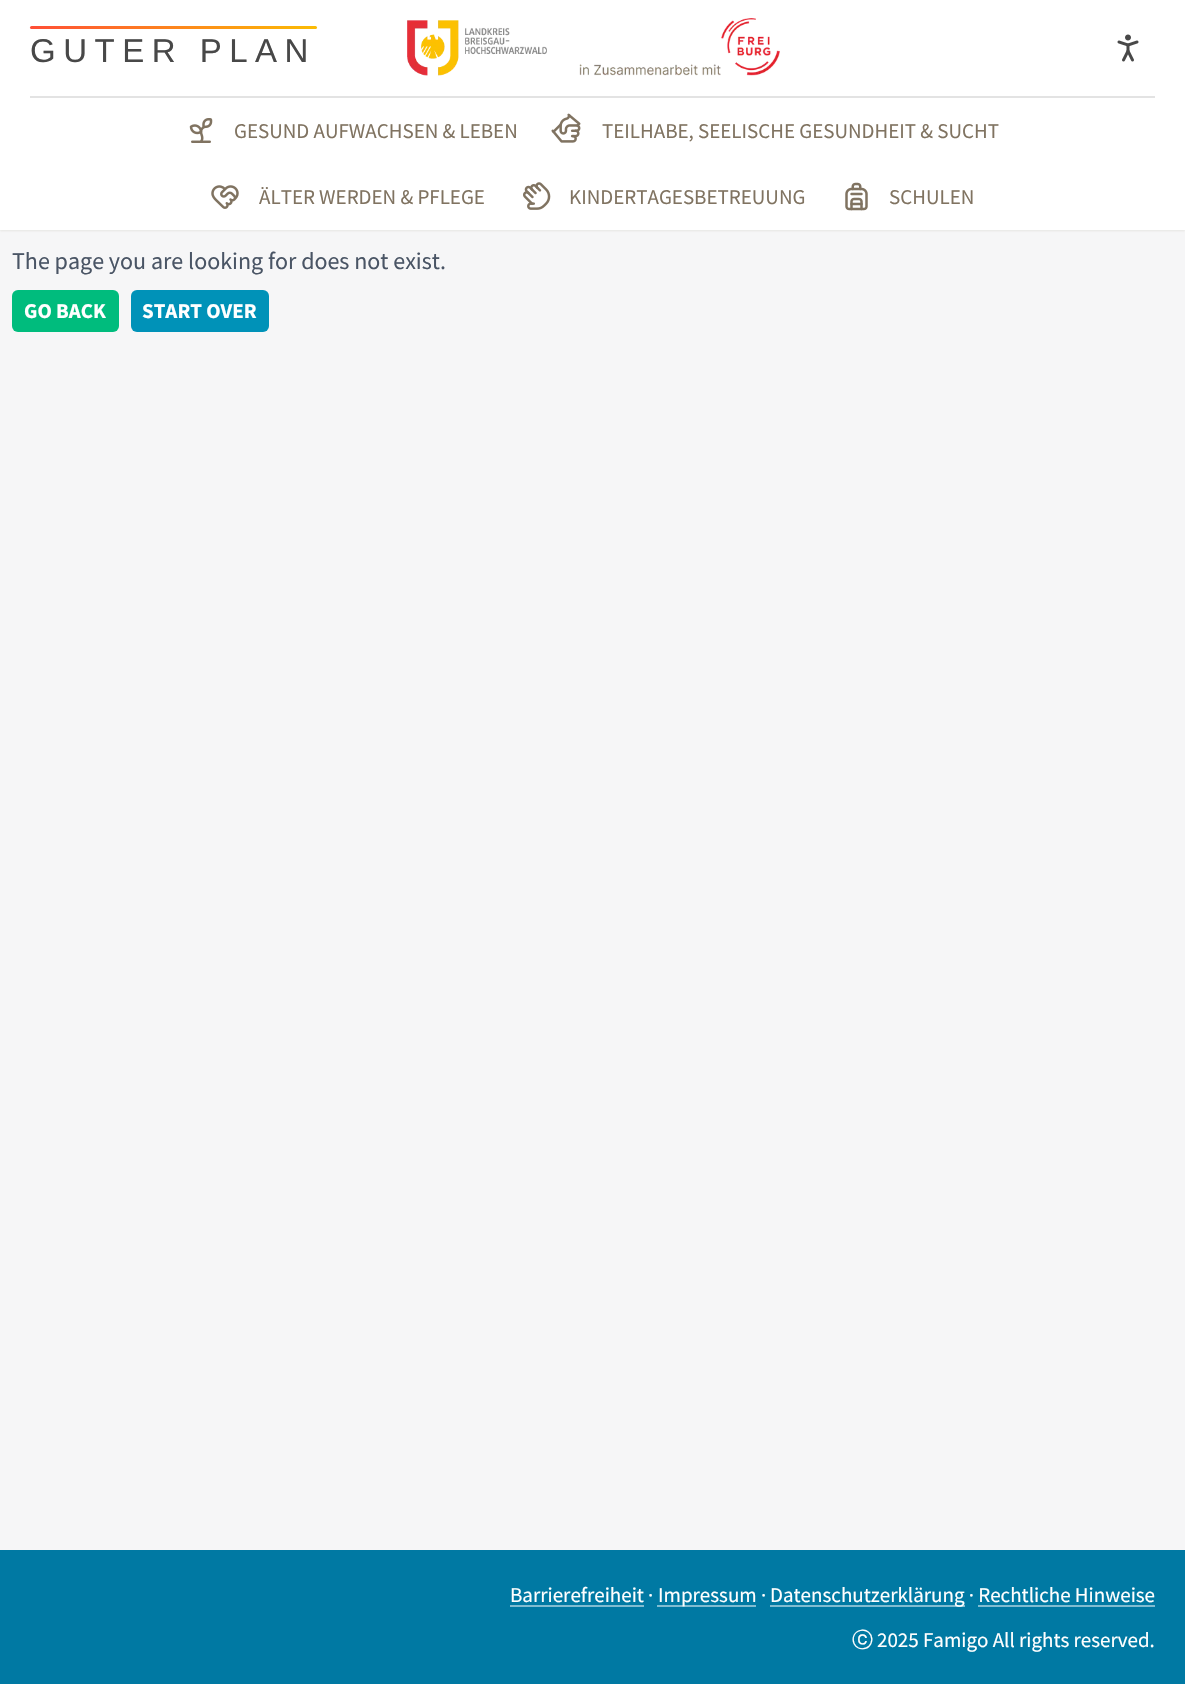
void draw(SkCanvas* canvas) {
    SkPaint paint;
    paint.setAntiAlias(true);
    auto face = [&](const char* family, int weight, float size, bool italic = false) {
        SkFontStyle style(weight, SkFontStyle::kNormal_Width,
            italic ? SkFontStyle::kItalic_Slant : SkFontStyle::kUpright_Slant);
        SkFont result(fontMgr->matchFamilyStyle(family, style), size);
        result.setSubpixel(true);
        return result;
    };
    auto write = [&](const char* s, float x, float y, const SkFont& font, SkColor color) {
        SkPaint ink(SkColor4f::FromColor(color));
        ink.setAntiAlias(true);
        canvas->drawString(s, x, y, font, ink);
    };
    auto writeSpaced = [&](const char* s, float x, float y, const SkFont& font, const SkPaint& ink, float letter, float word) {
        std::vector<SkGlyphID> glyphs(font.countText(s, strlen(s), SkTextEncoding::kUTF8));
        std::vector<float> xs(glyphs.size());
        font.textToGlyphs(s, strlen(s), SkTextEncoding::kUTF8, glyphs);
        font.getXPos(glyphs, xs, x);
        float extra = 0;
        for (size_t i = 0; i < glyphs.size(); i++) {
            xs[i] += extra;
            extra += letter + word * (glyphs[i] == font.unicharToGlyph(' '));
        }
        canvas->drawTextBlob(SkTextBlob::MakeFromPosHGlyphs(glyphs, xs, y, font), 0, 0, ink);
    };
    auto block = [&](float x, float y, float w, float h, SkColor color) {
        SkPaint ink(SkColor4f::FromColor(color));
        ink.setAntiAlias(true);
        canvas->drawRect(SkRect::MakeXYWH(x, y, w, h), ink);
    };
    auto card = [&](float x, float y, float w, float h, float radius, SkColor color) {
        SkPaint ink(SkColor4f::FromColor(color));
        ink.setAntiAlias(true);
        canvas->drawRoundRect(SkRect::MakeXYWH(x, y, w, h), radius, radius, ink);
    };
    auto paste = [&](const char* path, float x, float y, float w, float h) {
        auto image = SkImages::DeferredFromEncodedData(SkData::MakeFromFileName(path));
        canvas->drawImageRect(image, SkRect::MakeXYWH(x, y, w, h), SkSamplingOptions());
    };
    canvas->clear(SkColorSetRGB(246, 246, 247));
    paint.setColor(SkColorSetARGB(128, 214, 212, 204));
    paint.setMaskFilter(SkMaskFilter::MakeBlur(kNormal_SkBlurStyle, 1));
    canvas->drawRect(SkRect::MakeXYWH(0, 2, 1185, 229), paint);
    paint.setMaskFilter(nullptr);
    block(0, 0, 1185, 230, SK_ColorWHITE);
    {
        const SkColor colors[] = {SkColorSetRGB(255, 78, 54), SkColorSetRGB(251, 188, 4)};
        const float stops[] = {0, 1};
        const SkPoint ends[] = {{30, 27}, {317, 27}};
        paint.setShader(SkGradientShader::MakeLinear(ends, colors, stops, 2, SkTileMode::kClamp));
        paint.setAlpha(255);
    }
    canvas->drawRoundRect(SkRect::MakeXYWH(30, 26, 287, 3), 1.5f, 1.5f, paint);
    auto kFont1 = face("Liberation Sans", 400, 33);
    paint.setShader(nullptr);
    paint.setColor(SkColorSetRGB(72, 72, 72));
    writeSpaced("GUTER PLAN", 30, 62, kFont1, paint, 7.5f, 0);
    paste("pic1.png", 407, 20, 140, 56);
    paste("pic2.png", 579, 18, 201, 58);
    paste("pic3.png", 1117, 34, 22, 28);
    block(30, 96, 1125, 2, SkColorSetRGB(227, 227, 227));
    paste("pic4.png", 189, 118, 24, 25);
    auto kFont2 = face("Source Sans Pro", 400, 21);
    write("GESUND AUFWACHSEN & LEBEN", 234, 138, kFont2, SkColorSetRGB(128, 115, 97));
    paste("pic5.png", 551, 113, 30, 30);
    write("TEILHABE, SEELISCHE GESUNDHEIT & SUCHT", 602, 138, kFont2, SkColorSetRGB(128, 115, 97));
    paste("pic6.png", 211, 185, 28, 24);
    write("ÄLTER WERDEN & PFLEGE", 259, 204, kFont2, SkColorSetRGB(128, 115, 97));
    paste("pic7.png", 523, 182, 28, 28);
    write("KINDERTAGESBETREUUNG", 569, 204, kFont2, SkColorSetRGB(128, 115, 97));
    paste("pic8.png", 845, 182, 23, 29);
    write("SCHULEN", 889, 204, kFont2, SkColorSetRGB(128, 115, 97));
    auto kFont3 = face("Source Sans Pro", 400, 24);
    write("The page you are looking for does not exist.", 12, 269, kFont3, SkColorSetRGB(74, 85, 101));
    card(12, 290, 107, 42, 6, SkColorSetRGB(0, 188, 125));
    auto kFont4 = face("Source Sans Pro", 700, 21);
    write("GO BACK", 24, 318, kFont4, SK_ColorWHITE);
    card(131, 290, 138, 42, 6, SkColorSetRGB(0, 146, 184));
    write("START OVER", 142, 318, kFont4, SK_ColorWHITE);
    block(0, 1550, 1185, 134, SkColorSetRGB(0, 121, 163));
    write("Barrierefreiheit ·", 510, 1602, kFont2, SK_ColorWHITE);
    block(510, 1605, 134, 2, SkColorSetRGB(128, 188, 209));
    block(657, 1605, 99, 2, SkColorSetRGB(128, 188, 209));
    write("Impressum ·", 658, 1602, kFont2, SK_ColorWHITE);
    block(770, 1605, 195, 2, SkColorSetRGB(128, 188, 209));
    write("Datenschutzerklärung · Rechtliche Hinweise", 770, 1602, kFont2, SK_ColorWHITE);
    block(978, 1605, 177, 2, SkColorSetRGB(128, 188, 209));
    auto kFont5 = face("WenQuanYi Zen Hei", 500, 21);
    write("ⓒ", 852, 1647, kFont5, SK_ColorWHITE);
    write("2025 Famigo All rights reserved.", 877, 1647, kFont2, SK_ColorWHITE);
}
